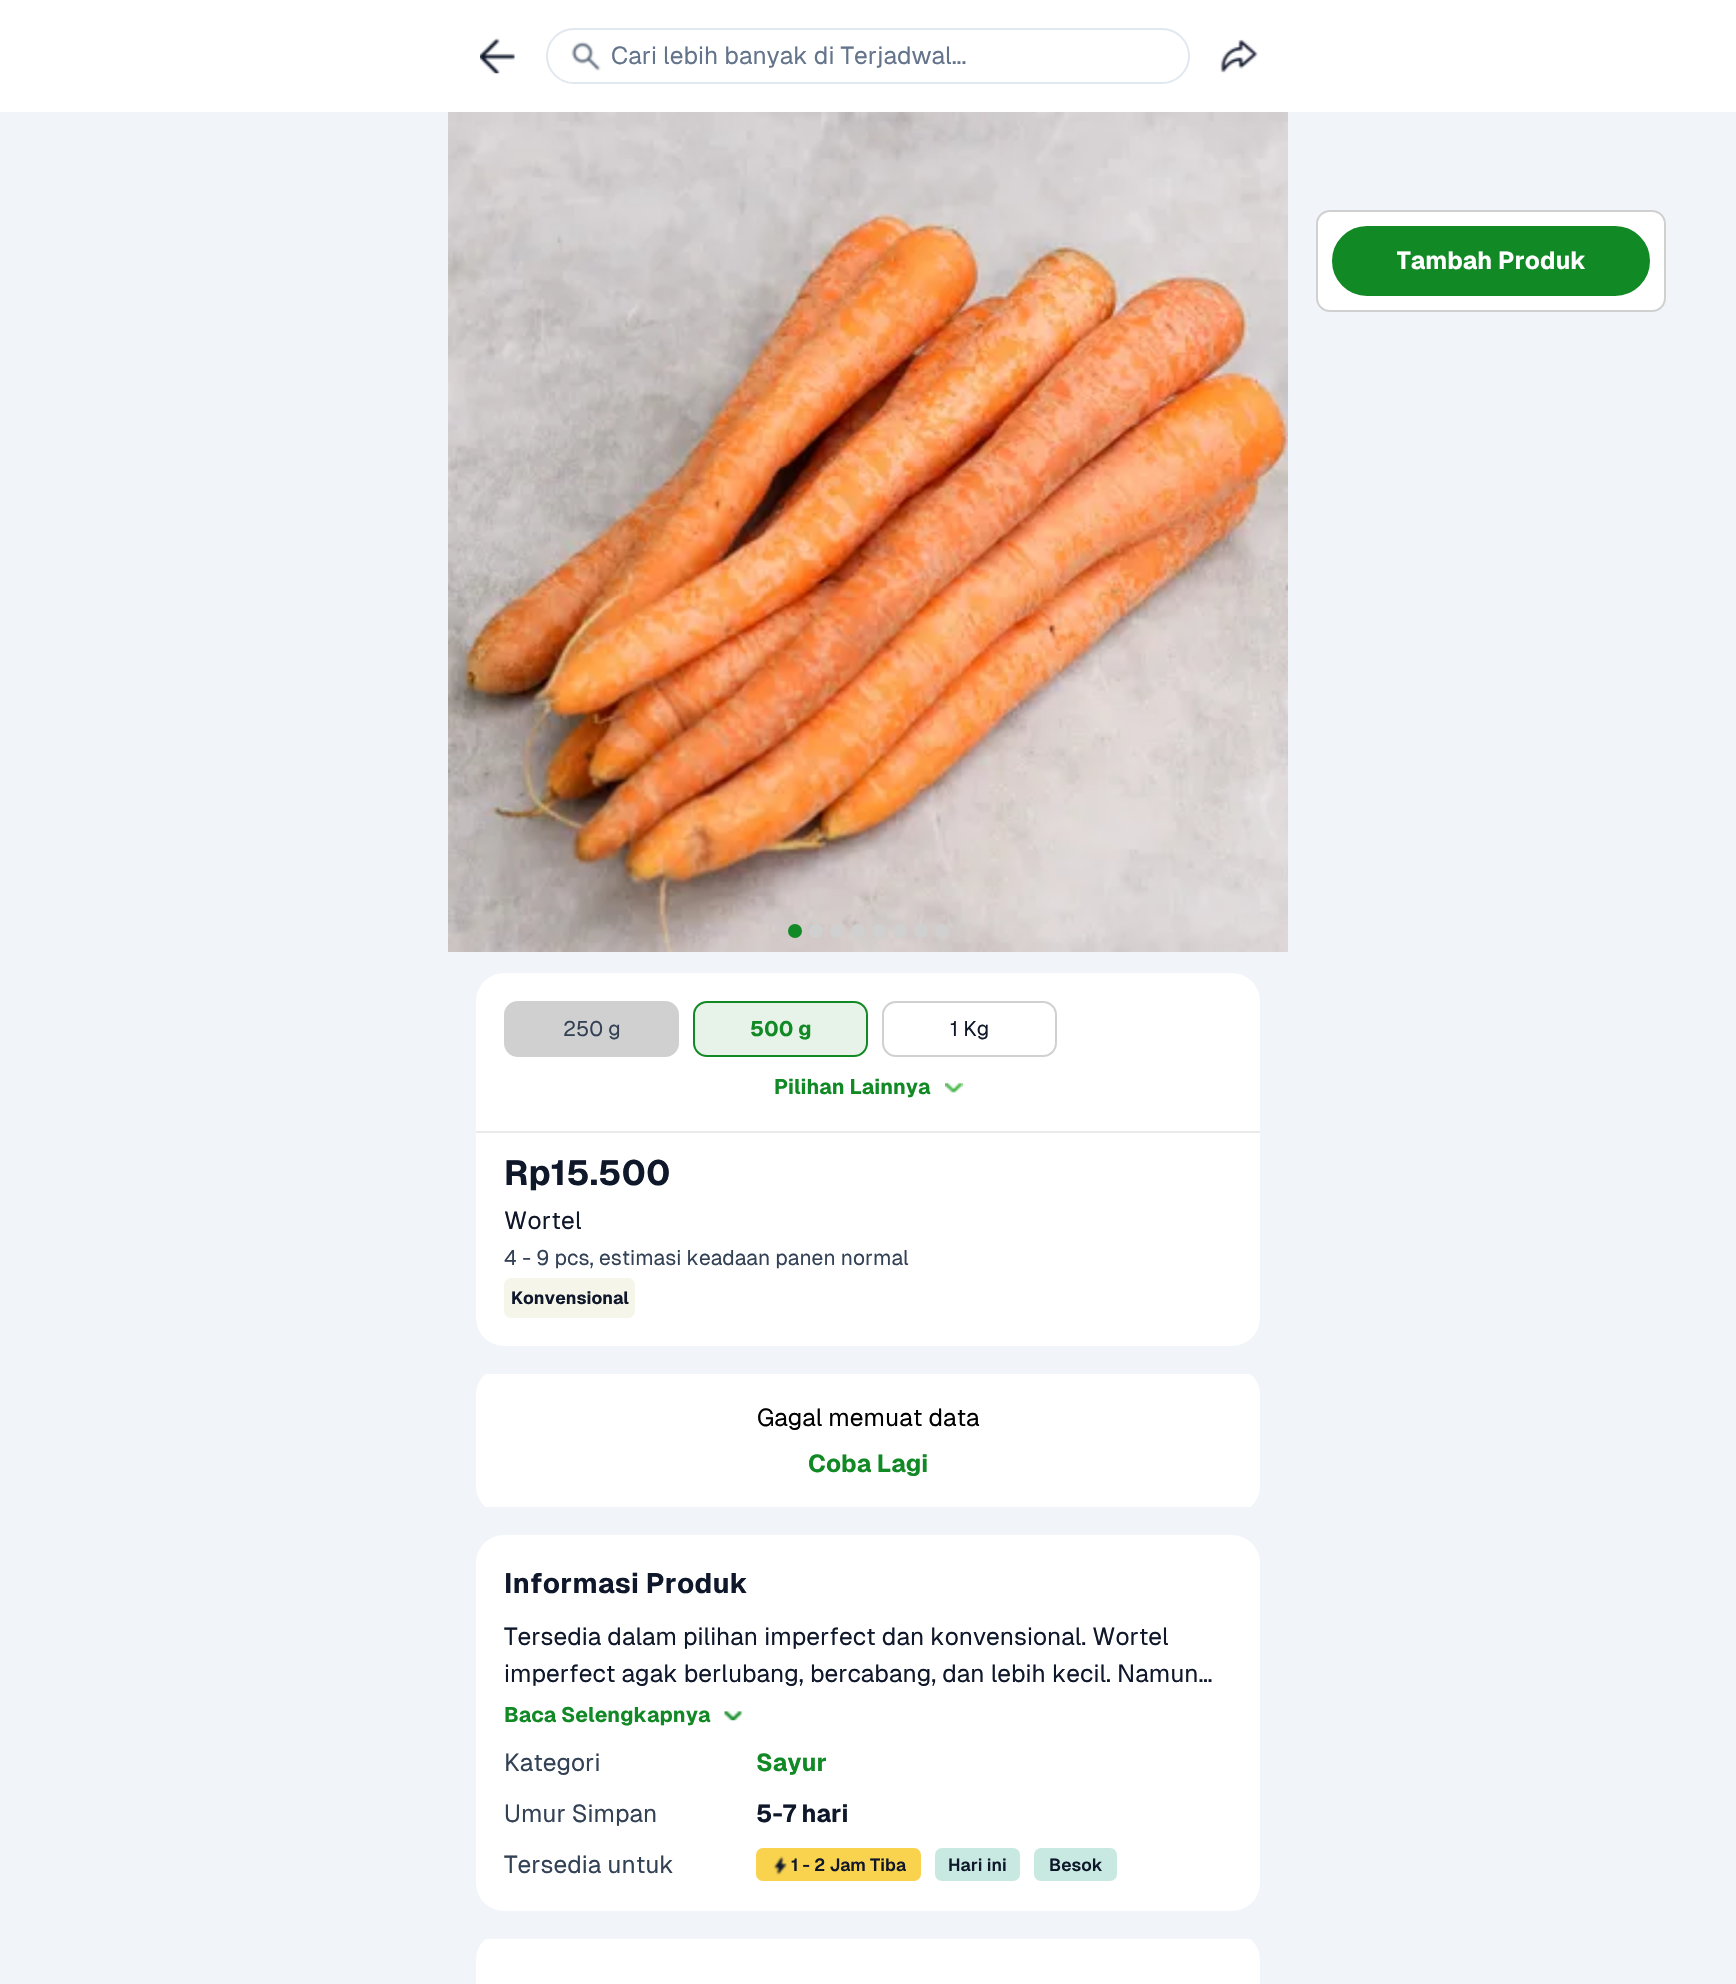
void draw(SkCanvas* canvas) {
    SkPaint paint;
    paint.setAntiAlias(true);
    auto face = [&](const char* family, int weight, float size, bool italic = false) {
        SkFontStyle style(weight, SkFontStyle::kNormal_Width,
            italic ? SkFontStyle::kItalic_Slant : SkFontStyle::kUpright_Slant);
        SkFont result(fontMgr->matchFamilyStyle(family, style), size);
        result.setSubpixel(true);
        return result;
    };
    auto write = [&](const char* s, float x, float y, const SkFont& font, SkColor color) {
        SkPaint ink(SkColor4f::FromColor(color));
        ink.setAntiAlias(true);
        canvas->drawString(s, x, y, font, ink);
    };
    auto writeSpaced = [&](const char* s, float x, float y, const SkFont& font, const SkPaint& ink, float letter, float word) {
        std::vector<SkGlyphID> glyphs(font.countText(s, strlen(s), SkTextEncoding::kUTF8));
        std::vector<float> xs(glyphs.size());
        font.textToGlyphs(s, strlen(s), SkTextEncoding::kUTF8, glyphs);
        font.getXPos(glyphs, xs, x);
        float extra = 0;
        for (size_t i = 0; i < glyphs.size(); i++) {
            xs[i] += extra;
            extra += letter + word * (glyphs[i] == font.unicharToGlyph(' '));
        }
        canvas->drawTextBlob(SkTextBlob::MakeFromPosHGlyphs(glyphs, xs, y, font), 0, 0, ink);
    };
    auto block = [&](float x, float y, float w, float h, SkColor color) {
        SkPaint ink(SkColor4f::FromColor(color));
        ink.setAntiAlias(true);
        canvas->drawRect(SkRect::MakeXYWH(x, y, w, h), ink);
    };
    auto card = [&](float x, float y, float w, float h, float radius, SkColor color) {
        SkPaint ink(SkColor4f::FromColor(color));
        ink.setAntiAlias(true);
        canvas->drawRoundRect(SkRect::MakeXYWH(x, y, w, h), radius, radius, ink);
    };
    auto paste = [&](const char* path, float x, float y, float w, float h) {
        auto image = SkImages::DeferredFromEncodedData(SkData::MakeFromFileName(path));
        canvas->drawImageRect(image, SkRect::MakeXYWH(x, y, w, h), SkSamplingOptions());
    };
    canvas->clear(SkColorSetRGB(241, 245, 249));
    block(0, 0, 1736, 112, SK_ColorWHITE);
    paste("pic1.png", 480, 38, 35, 36);
    paint.setStyle(SkPaint::kStroke_Style);
    paint.setStrokeWidth(2);
    paint.setColor(SkColorSetRGB(226, 232, 240));
    canvas->drawRoundRect(SkRect::MakeXYWH(547, 29, 642, 54), 27, 27, paint);
    paste("pic2.png", 571, 41, 30, 30);
    auto kFont1 = face("Geist", 400, 24.5f);
    write("Cari lebih banyak di Terjadwal...", 611, 64, kFont1, SkColorSetRGB(100, 116, 139));
    paste("pic3.png", 1220, 39, 38, 34);
    paint.setStyle(SkPaint::kFill_Style);
    paint.setColor(SK_ColorWHITE);
    canvas->drawRoundRect(SkRect::MakeXYWH(1317, 211, 348, 100), 13, 13, paint);
    paint.setStyle(SkPaint::kStroke_Style);
    paint.setColor(SkColorSetRGB(208, 208, 208));
    canvas->drawRoundRect(SkRect::MakeXYWH(1317, 211, 348, 100), 13, 13, paint);
    paint.setStyle(SkPaint::kFill_Style);
    paint.setColor(SkColorSetRGB(17, 137, 37));
    canvas->drawRoundRect(SkRect::MakeXYWH(1333, 227, 316, 68), 34, 34, paint);
    paint.setStyle(SkPaint::kStroke_Style);
    canvas->drawRoundRect(SkRect::MakeXYWH(1333, 227, 316, 68), 34, 34, paint);
    canvas->save();
    canvas->clipRect(SkRect::MakeXYWH(1397, 242, 189, 38));
    auto kFont2 = face("Geist", 700, 24.5f);
    write("Tambah Produk", 1396, 269, kFont2, SK_ColorWHITE);
    canvas->restore();
    paste("pic4.png", 448, 112, 840, 840);
    paint.setStyle(SkPaint::kFill_Style);
    canvas->drawCircle(795, 931, 7, paint);
    paint.setColor(SkColorSetRGB(208, 208, 208));
    canvas->drawCircle(816, 931, 7, paint);
    canvas->drawCircle(837, 931, 7, paint);
    canvas->drawCircle(858, 931, 7, paint);
    canvas->drawCircle(879, 931, 7, paint);
    canvas->drawCircle(900, 931, 7, paint);
    canvas->drawCircle(921, 931, 7, paint);
    canvas->drawCircle(942, 931, 7, paint);
    card(476, 973, 784, 373, 28, SK_ColorWHITE);
    block(476, 1131, 784, 2, SkColorSetRGB(234, 234, 234));
    canvas->drawRoundRect(SkRect::MakeXYWH(505, 1002, 173, 54), 13, 13, paint);
    paint.setStyle(SkPaint::kStroke_Style);
    canvas->drawRoundRect(SkRect::MakeXYWH(505, 1002, 173, 54), 13, 13, paint);
    auto kFont3 = face("Geist", 400, 21);
    write("250 g", 563, 1036, kFont3, SkColorSetRGB(51, 65, 85));
    paint.setStyle(SkPaint::kFill_Style);
    paint.setColor(SkColorSetRGB(231, 243, 233));
    canvas->drawRoundRect(SkRect::MakeXYWH(694, 1002, 173, 54), 13, 13, paint);
    paint.setStyle(SkPaint::kStroke_Style);
    paint.setColor(SkColorSetRGB(17, 137, 37));
    canvas->drawRoundRect(SkRect::MakeXYWH(694, 1002, 173, 54), 13, 13, paint);
    auto kFont4 = face("Geist", 700, 21);
    write("500 g", 750, 1036, kFont4, SkColorSetRGB(17, 137, 37));
    paint.setColor(SkColorSetRGB(208, 208, 208));
    canvas->drawRoundRect(SkRect::MakeXYWH(883, 1002, 173, 54), 13, 13, paint);
    write("1 Kg", 950, 1036, kFont3, SkColorSetRGB(15, 23, 42));
    write("Pilihan Lainnya", 774, 1094, kFont4, SkColorSetRGB(17, 137, 37));
    paste("pic5.png", 945, 1082, 18, 11);
    auto kFont5 = face("Geist", 700, 35);
    write("Rp15.500", 504, 1185, kFont5, SkColorSetRGB(15, 23, 42));
    paint.setStyle(SkPaint::kFill_Style);
    paint.setColor(SkColorSetRGB(15, 23, 42));
    writeSpaced("Wortel", 504, 1229, kFont1, paint, 0.25f, 0);
    write("4 - 9 pcs, estimasi keadaan panen normal", 504, 1265, kFont3, SkColorSetRGB(51, 65, 85));
    card(504, 1278, 131, 40, 7, SkColorSetRGB(246, 245, 234));
    auto kFont6 = face("Geist", 700, 17.5f);
    write("Konvensional", 511, 1304, kFont6, SkColorSetRGB(15, 23, 42));
    canvas->save();
    canvas->clipPath(SkPathBuilder().moveTo(504, 1367).lineTo(1232, 1367).cubicTo(1247.5f, 1367, 1260, 1379.5f, 1260, 1395).lineTo(1260, 1486).cubicTo(1260, 1501.5f, 1247.5f, 1514, 1232, 1514).lineTo(504, 1514).cubicTo(488.5f, 1514, 476, 1501.5f, 476, 1486).lineTo(476, 1395).cubicTo(476, 1379.5f, 488.5f, 1367, 504, 1367).close().detach(), true);
    block(476, 1374, 784, 133, SK_ColorWHITE);
    canvas->restore();
    write("Gagal memuat data", 757, 1426, kFont1, SK_ColorBLACK);
    write("Coba Lagi", 808, 1472, kFont2, SkColorSetRGB(17, 137, 37));
    card(476, 1535, 784, 376, 28, SK_ColorWHITE);
    auto kFont7 = face("Geist", 700, 28);
    writeSpaced("Informasi Produk", 504, 1593, kFont7, paint, 0.25f, 0);
    write("Tersedia dalam pilihan imperfect dan konvensional. Wortel", 504, 1645, kFont1, SkColorSetRGB(15, 23, 42));
    write("imperfect agak berlubang, bercabang, dan lebih kecil. Namun…", 504, 1682, kFont1, SkColorSetRGB(15, 23, 42));
    write("Baca Selengkapnya", 504, 1722, kFont4, SkColorSetRGB(17, 137, 37));
    paste("pic6.png", 724, 1711, 19, 10);
    write("Kategori", 504, 1771, kFont1, SkColorSetRGB(51, 65, 85));
    write("Sayur", 756, 1771, kFont2, SkColorSetRGB(17, 137, 37));
    write("Umur Simpan", 504, 1822, kFont1, SkColorSetRGB(51, 65, 85));
    write("5-7 hari", 756, 1822, kFont2, SkColorSetRGB(15, 23, 42));
    write("Tersedia untuk", 504, 1873, kFont1, SkColorSetRGB(51, 65, 85));
    card(756, 1848, 165, 33, 7, SkColorSetRGB(249, 211, 77));
    paste("pic7.png", 773, 1856, 14, 19);
    auto kFont8 = face("Geist", 600, 17.5f);
    write("1 - 2 Jam Tiba", 791, 1871, kFont8, SkColorSetRGB(15, 23, 42));
    card(935, 1848, 85, 33, 7, SkColorSetRGB(200, 233, 225));
    write("Hari ini", 948, 1871, kFont8, SkColorSetRGB(15, 23, 42));
    card(1034, 1848, 83, 33, 7, SkColorSetRGB(200, 233, 225));
    write("Besok", 1049, 1871, kFont8, SkColorSetRGB(15, 23, 42));
    canvas->save();
    canvas->clipPath(SkPathBuilder().moveTo(504, 1932).lineTo(1232, 1932).cubicTo(1247.5f, 1932, 1260, 1944.5f, 1260, 1960).lineTo(1260, 2051).cubicTo(1260, 2066.5f, 1247.5f, 2079, 1232, 2079).lineTo(504, 2079).cubicTo(488.5f, 2079, 476, 2066.5f, 476, 2051).lineTo(476, 1960).cubicTo(476, 1944.5f, 488.5f, 1932, 504, 1932).close().detach(), true);
    block(476, 1939, 784, 45, SK_ColorWHITE);
    canvas->restore();
}
